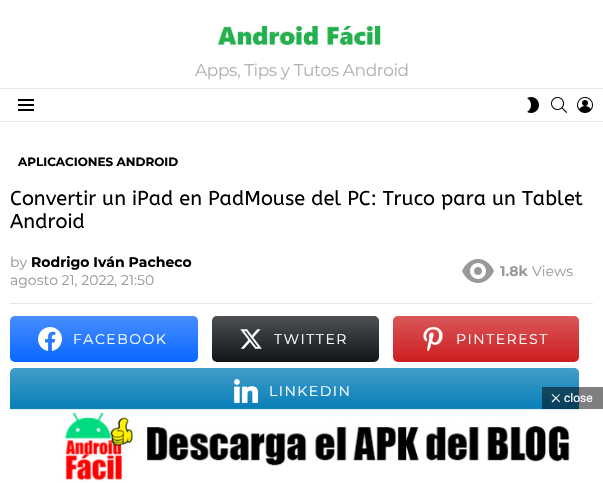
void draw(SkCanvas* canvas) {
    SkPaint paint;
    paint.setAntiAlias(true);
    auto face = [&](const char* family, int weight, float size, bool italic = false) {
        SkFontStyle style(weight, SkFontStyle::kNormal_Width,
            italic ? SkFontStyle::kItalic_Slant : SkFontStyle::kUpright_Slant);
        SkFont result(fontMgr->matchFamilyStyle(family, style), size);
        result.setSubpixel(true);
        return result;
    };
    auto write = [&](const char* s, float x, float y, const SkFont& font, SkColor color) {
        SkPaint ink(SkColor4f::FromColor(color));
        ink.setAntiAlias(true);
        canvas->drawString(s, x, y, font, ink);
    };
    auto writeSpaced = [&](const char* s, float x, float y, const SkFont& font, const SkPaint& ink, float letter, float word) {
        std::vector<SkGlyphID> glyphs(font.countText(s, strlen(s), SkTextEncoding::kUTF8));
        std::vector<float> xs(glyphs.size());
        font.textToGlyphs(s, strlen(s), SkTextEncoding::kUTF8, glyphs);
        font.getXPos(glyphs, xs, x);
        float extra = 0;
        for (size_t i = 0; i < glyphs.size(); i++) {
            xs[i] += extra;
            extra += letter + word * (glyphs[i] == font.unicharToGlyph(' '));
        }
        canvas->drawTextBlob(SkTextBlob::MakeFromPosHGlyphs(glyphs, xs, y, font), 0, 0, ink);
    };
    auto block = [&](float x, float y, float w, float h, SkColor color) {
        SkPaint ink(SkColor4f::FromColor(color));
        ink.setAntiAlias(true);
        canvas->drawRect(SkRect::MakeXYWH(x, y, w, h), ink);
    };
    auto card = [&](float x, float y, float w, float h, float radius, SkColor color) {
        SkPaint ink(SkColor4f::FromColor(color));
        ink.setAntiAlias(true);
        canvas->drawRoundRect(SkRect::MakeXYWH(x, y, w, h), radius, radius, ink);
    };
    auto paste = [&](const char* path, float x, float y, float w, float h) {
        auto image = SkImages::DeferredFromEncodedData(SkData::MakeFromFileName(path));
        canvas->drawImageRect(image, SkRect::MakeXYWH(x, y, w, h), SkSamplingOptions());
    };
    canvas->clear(SK_ColorWHITE);
    paste("pic1.png", 216, 25, 165, 22);
    auto kFont1 = face("Montserrat", 400, 17);
    paint.setColor(SkColorSetRGB(179, 179, 179));
    writeSpaced("Apps, Tips y Tutos Android", 195, 76, kFont1, paint, -0.4f, 0);
    block(0, 88, 603, 1, SkColorSetRGB(230, 230, 230));
    paste("pic2.png", 18, 99, 16, 12);
    paste("pic3.png", 527, 97, 12, 16);
    paste("pic4.png", 551, 97, 16, 16);
    paste("pic5.png", 577, 97, 16, 16);
    block(0, 121, 603, 1, SkColorSetRGB(230, 230, 230));
    auto kFont2 = face("Montserrat", 700, 12);
    write("APLICACIONES ANDROID", 18, 166, kFont2, SK_ColorBLACK);
    auto kFont3 = face("ABeeZee", 400, 20);
    write("Convertir un iPad en PadMouse del PC: Truco para un Tablet", 10, 205, kFont3, SK_ColorBLACK);
    write("Android", 10, 228, kFont3, SK_ColorBLACK);
    auto kFont4 = face("Montserrat", 400, 14);
    write("by", 10, 267, kFont4, SkColorSetRGB(153, 153, 153));
    auto kFont5 = face("Montserrat", 700, 14);
    write("Rodrigo Iván Pacheco", 31, 267, kFont5, SK_ColorBLACK);
    write("agosto 21, 2022, 21:50", 10, 285, kFont4, SkColorSetRGB(153, 153, 153));
    paste("pic6.png", 462, 259, 32, 24);
    write("1.8k", 500, 276, kFont5, SkColorSetRGB(153, 153, 153));
    write("Views", 532, 276, kFont4, SkColorSetRGB(153, 153, 153));
    block(10, 303, 583, 1, SkColorSetRGB(230, 230, 230));
    card(10, 316, 188, 46, 5, SkColorSetRGB(8, 102, 255));
    {
        const SkColor colors[] = {SkColorSetARGB(0, 255, 255, 255), SkColorSetARGB(66, 255, 255, 255)};
        const float stops[] = {0, 1};
        const SkPoint ends[] = {{104, 362}, {104, 316}};
        paint.setShader(SkGradientShader::MakeLinear(ends, colors, stops, 2, SkTileMode::kClamp));
        paint.setAlpha(255);
    }
    canvas->drawRoundRect(SkRect::MakeXYWH(10, 316, 188, 46), 5, 5, paint);
    paste("pic7.png", 38, 327, 24, 24);
    paint.setShader(nullptr);
    paint.setColor(SK_ColorWHITE);
    writeSpaced("FACEBOOK", 73, 344, kFont4, paint, 1.5f, 0);
    card(212, 316, 167, 46, 5, SkColorSetRGB(15, 20, 25));
    {
        const SkColor colors[] = {SkColorSetARGB(0, 255, 255, 255), SkColorSetARGB(66, 255, 255, 255)};
        const float stops[] = {0, 1};
        const SkPoint ends[] = {{296, 362}, {296, 316}};
        paint.setShader(SkGradientShader::MakeLinear(ends, colors, stops, 2, SkTileMode::kClamp));
        paint.setAlpha(255);
    }
    canvas->drawRoundRect(SkRect::MakeXYWH(212, 316, 167, 46), 5, 5, paint);
    paste("pic8.png", 240, 329, 22, 20);
    paint.setShader(nullptr);
    paint.setColor(SK_ColorWHITE);
    writeSpaced("TWITTER", 274, 344, kFont4, paint, 1.5f, 0);
    card(393, 316, 186, 46, 5, SkColorSetRGB(205, 28, 31));
    {
        const SkColor colors[] = {SkColorSetARGB(0, 255, 255, 255), SkColorSetARGB(66, 255, 255, 255)};
        const float stops[] = {0, 1};
        const SkPoint ends[] = {{486, 362}, {486, 316}};
        paint.setShader(SkGradientShader::MakeLinear(ends, colors, stops, 2, SkTileMode::kClamp));
        paint.setAlpha(255);
    }
    canvas->drawRoundRect(SkRect::MakeXYWH(393, 316, 186, 46), 5, 5, paint);
    paste("pic9.png", 423, 327, 20, 24);
    paint.setShader(nullptr);
    paint.setColor(SK_ColorWHITE);
    writeSpaced("PINTEREST", 456, 344, kFont4, paint, 1.5f, 0);
    card(10, 368, 569, 46, 5, SkColorSetRGB(0, 123, 182));
    {
        const SkColor colors[] = {SkColorSetARGB(0, 255, 255, 255), SkColorSetARGB(66, 255, 255, 255)};
        const float stops[] = {0, 1};
        const SkPoint ends[] = {{295, 414}, {295, 368}};
        paint.setShader(SkGradientShader::MakeLinear(ends, colors, stops, 2, SkTileMode::kClamp));
        paint.setAlpha(255);
    }
    canvas->drawRoundRect(SkRect::MakeXYWH(10, 368, 569, 46), 5, 5, paint);
    paste("pic10.png", 234, 379, 24, 24);
    paint.setShader(nullptr);
    paint.setColor(SK_ColorWHITE);
    writeSpaced("LINKEDIN", 269, 396, kFont4, paint, 1.5f, 0);
    paste("pic11.png", 0, 408, 603, 75);
    block(542, 387, 61, 22, SkColorSetARGB(128, 0, 0, 0));
    canvas->drawPath(SkPathBuilder().moveTo(552.5f, 394).lineTo(560, 401.5f).lineTo(559.5f, 402.5f).lineTo(551.5f, 394.5f).close().detach(), paint);
    auto kFont6 = face("Roboto", 400, 12);
    write("close", 564, 402, kFont6, SK_ColorWHITE);
    canvas->drawPath(SkPathBuilder().moveTo(559.5f, 394).lineTo(560, 394.5f).lineTo(552.5f, 402.5f).lineTo(551.5f, 401.5f).close().detach(), paint);
}
